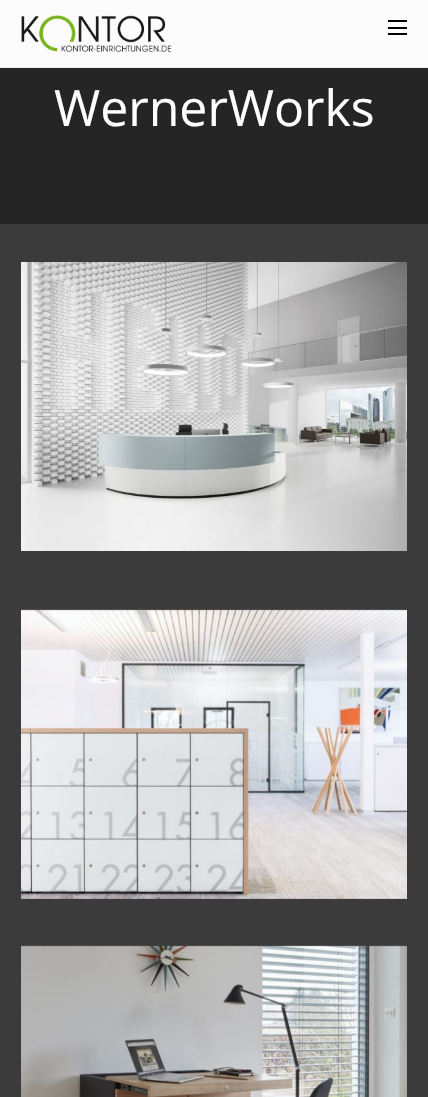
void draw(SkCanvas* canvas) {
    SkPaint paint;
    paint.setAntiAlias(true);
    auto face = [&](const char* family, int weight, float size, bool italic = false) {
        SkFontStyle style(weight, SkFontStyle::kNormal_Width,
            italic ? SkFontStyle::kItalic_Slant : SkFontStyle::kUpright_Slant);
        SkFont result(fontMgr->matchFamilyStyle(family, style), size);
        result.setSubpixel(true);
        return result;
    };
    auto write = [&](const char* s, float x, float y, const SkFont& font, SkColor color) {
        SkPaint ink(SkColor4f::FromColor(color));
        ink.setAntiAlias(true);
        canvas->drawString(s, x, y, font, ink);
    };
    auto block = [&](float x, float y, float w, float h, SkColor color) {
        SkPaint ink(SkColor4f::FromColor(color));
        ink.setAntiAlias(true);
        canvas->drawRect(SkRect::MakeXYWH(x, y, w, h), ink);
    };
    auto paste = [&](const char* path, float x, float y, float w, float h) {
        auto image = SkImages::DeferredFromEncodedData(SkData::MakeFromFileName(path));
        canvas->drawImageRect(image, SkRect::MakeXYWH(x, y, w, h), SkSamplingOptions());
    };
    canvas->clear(SkColorSetRGB(37, 37, 37));
    block(0, 0, 428, 67, SkColorSetRGB(252, 252, 252));
    block(0, 67, 428, 1, SkColorSetRGB(239, 239, 239));
    paste("pic1.png", 21, 15, 151, 37);
    block(388, 33, 19, 2, SK_ColorBLACK);
    block(388, 20, 19, 2, SK_ColorBLACK);
    block(388, 27, 19, 2, SK_ColorBLACK);
    auto kFont1 = face("Open Sans", 400, 50);
    write("WernerWorks", 54, 126, kFont1, SK_ColorWHITE);
    block(0, 224, 428, 873, SkColorSetRGB(59, 59, 59));
    paste("pic2.png", 21, 262, 386, 289);
    paste("pic3.png", 21, 609, 386, 290);
    paste("pic4.png", 21, 945, 386, 152);
}
